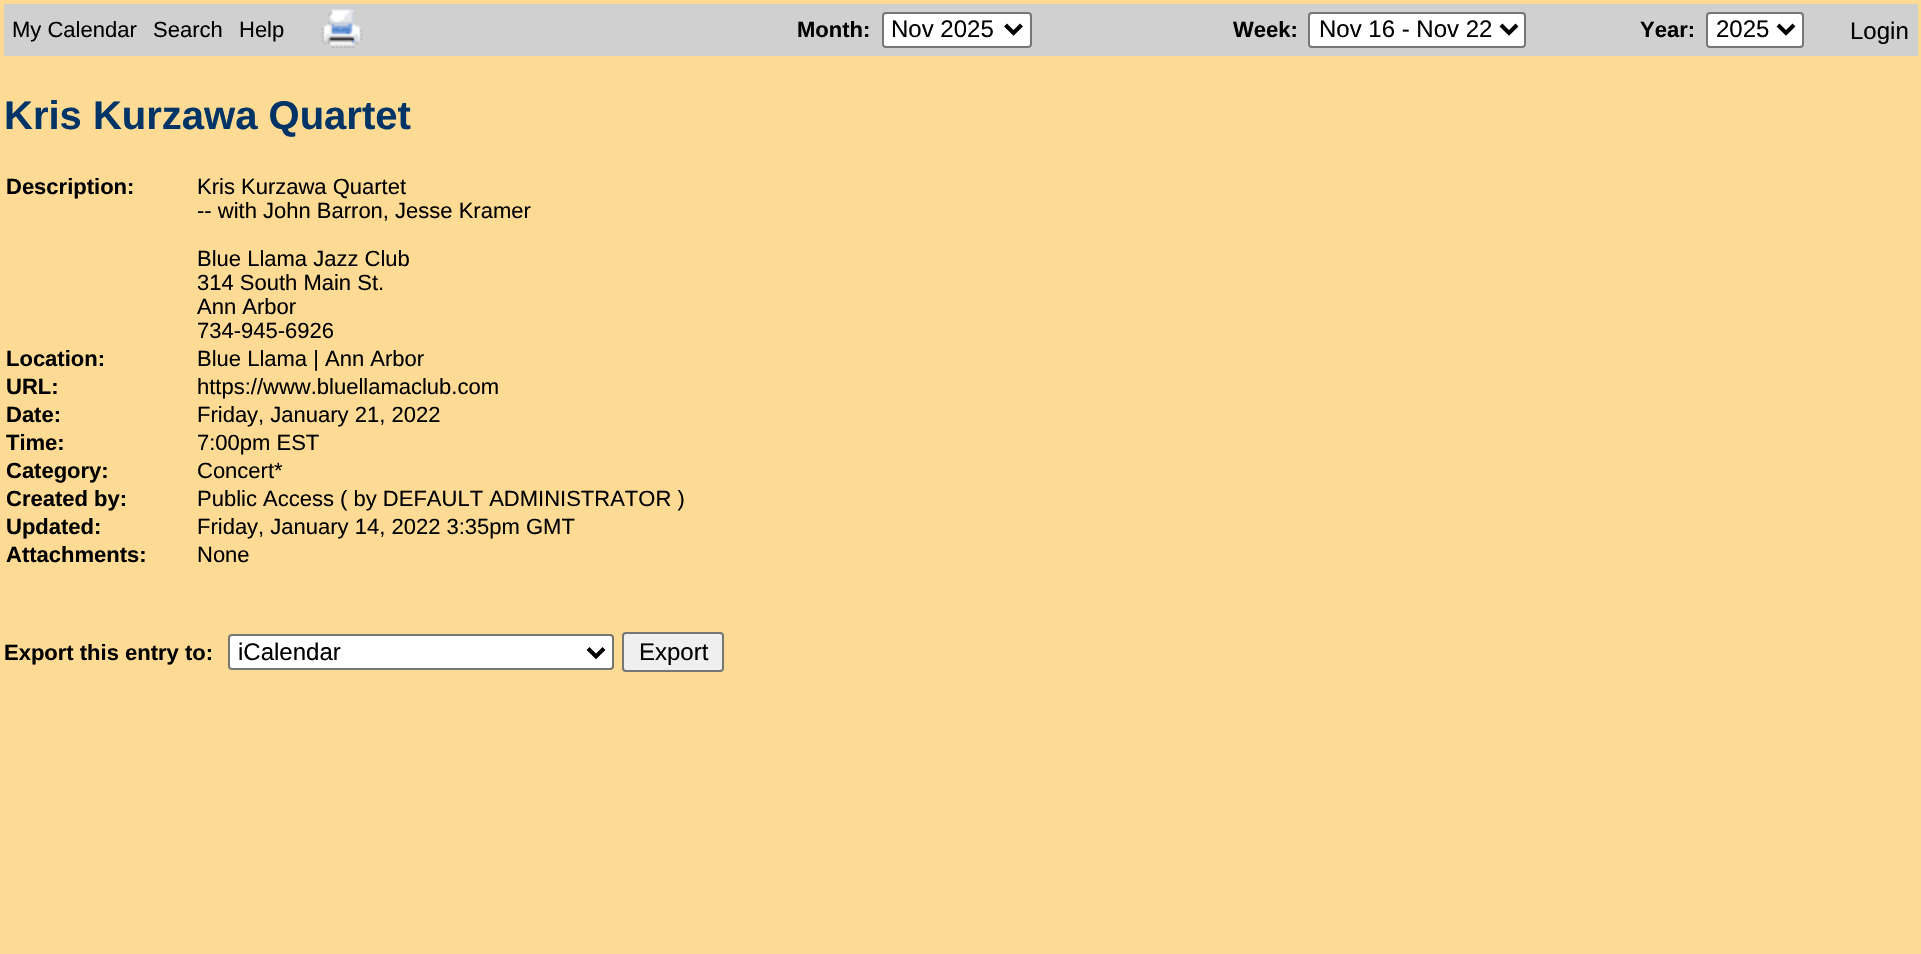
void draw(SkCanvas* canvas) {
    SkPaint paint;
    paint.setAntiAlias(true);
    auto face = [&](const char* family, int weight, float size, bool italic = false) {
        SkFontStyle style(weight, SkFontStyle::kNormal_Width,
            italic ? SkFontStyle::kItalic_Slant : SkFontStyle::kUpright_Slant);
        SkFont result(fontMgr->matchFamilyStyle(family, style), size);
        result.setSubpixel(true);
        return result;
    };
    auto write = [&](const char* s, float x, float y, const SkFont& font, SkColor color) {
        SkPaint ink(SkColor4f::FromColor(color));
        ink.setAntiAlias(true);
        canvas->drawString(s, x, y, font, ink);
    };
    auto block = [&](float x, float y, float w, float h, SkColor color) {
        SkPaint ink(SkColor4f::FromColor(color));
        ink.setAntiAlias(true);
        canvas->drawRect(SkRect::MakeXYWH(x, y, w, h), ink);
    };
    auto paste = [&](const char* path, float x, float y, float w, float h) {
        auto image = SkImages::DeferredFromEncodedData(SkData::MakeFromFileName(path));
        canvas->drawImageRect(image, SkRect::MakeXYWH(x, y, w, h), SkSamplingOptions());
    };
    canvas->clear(SkColorSetRGB(254, 219, 148));
    block(4, 4, 1914, 52, SkColorSetRGB(208, 208, 208));
    auto kFont1 = face("Liberation Sans", 400, 22);
    write("My Calendar", 12, 37, kFont1, SK_ColorBLACK);
    write("Search", 153, 37, kFont1, SK_ColorBLACK);
    write("Help", 239, 37, kFont1, SK_ColorBLACK);
    paste("pic1.png", 321, 8, 42, 40);
    auto kFont2 = face("Liberation Sans", 700, 22);
    write("Month:", 797, 37, kFont2, SK_ColorBLACK);
    paint.setColor(SK_ColorWHITE);
    canvas->drawRoundRect(SkRect::MakeXYWH(883, 13, 148, 34), 3, 3, paint);
    paint.setStyle(SkPaint::kStroke_Style);
    paint.setStrokeWidth(2);
    paint.setColor(SkColorSetRGB(118, 118, 118));
    canvas->drawRoundRect(SkRect::MakeXYWH(883, 13, 148, 34), 3, 3, paint);
    paint.setStrokeWidth(4);
    paint.setColor(SK_ColorBLACK);
    canvas->drawPath(SkPathBuilder().moveTo(1005.5f, 25).lineTo(1013.5f, 33).lineTo(1021.5f, 25).detach(), paint);
    auto kFont3 = face("Liberation Sans", 400, 24);
    write("Nov 2025", 891, 37, kFont3, SK_ColorBLACK);
    write("Week:", 1233, 37, kFont2, SK_ColorBLACK);
    paint.setStyle(SkPaint::kFill_Style);
    paint.setColor(SK_ColorWHITE);
    canvas->drawRoundRect(SkRect::MakeXYWH(1309, 13, 216, 34), 3, 3, paint);
    paint.setStyle(SkPaint::kStroke_Style);
    paint.setStrokeWidth(2);
    paint.setColor(SkColorSetRGB(118, 118, 118));
    canvas->drawRoundRect(SkRect::MakeXYWH(1309, 13, 216, 34), 3, 3, paint);
    paint.setStrokeWidth(4);
    paint.setColor(SK_ColorBLACK);
    canvas->drawPath(SkPathBuilder().moveTo(1501, 25).lineTo(1509, 33).lineTo(1517, 25).detach(), paint);
    write("Nov 16 - Nov 22", 1319, 37, kFont3, SK_ColorBLACK);
    write("Year:", 1640, 37, kFont2, SK_ColorBLACK);
    paint.setStyle(SkPaint::kFill_Style);
    paint.setColor(SK_ColorWHITE);
    canvas->drawRoundRect(SkRect::MakeXYWH(1707, 13, 96, 34), 3, 3, paint);
    paint.setStyle(SkPaint::kStroke_Style);
    paint.setStrokeWidth(2);
    paint.setColor(SkColorSetRGB(118, 118, 118));
    canvas->drawRoundRect(SkRect::MakeXYWH(1707, 13, 96, 34), 3, 3, paint);
    paint.setStrokeWidth(4);
    paint.setColor(SK_ColorBLACK);
    canvas->drawPath(SkPathBuilder().moveTo(1778, 25).lineTo(1786, 33).lineTo(1794, 25).detach(), paint);
    write("2025", 1716, 37, kFont3, SK_ColorBLACK);
    write("Login", 1850, 39, kFont3, SK_ColorBLACK);
    auto kFont4 = face("Liberation Sans", 700, 40);
    write("Kris Kurzawa Quartet", 4, 129, kFont4, SkColorSetRGB(0, 51, 102));
    write("Description:", 6, 194, kFont2, SK_ColorBLACK);
    write("Kris Kurzawa Quartet", 197, 194, kFont1, SK_ColorBLACK);
    write("-- with John Barron, Jesse Kramer", 197, 218, kFont1, SK_ColorBLACK);
    write("Blue Llama Jazz Club", 197, 266, kFont1, SK_ColorBLACK);
    write("314 South Main St.", 197, 290, kFont1, SK_ColorBLACK);
    write("Ann Arbor", 197, 314, kFont1, SK_ColorBLACK);
    write("734-945-6926", 197, 338, kFont1, SK_ColorBLACK);
    write("Location:", 6, 366, kFont2, SK_ColorBLACK);
    write("Blue Llama | Ann Arbor", 197, 366, kFont1, SK_ColorBLACK);
    write("URL:", 6, 394, kFont2, SK_ColorBLACK);
    write("https://www.bluellamaclub.com", 197, 394, kFont1, SK_ColorBLACK);
    write("Date:", 6, 422, kFont2, SK_ColorBLACK);
    write("Friday, January 21, 2022", 197, 422, kFont1, SK_ColorBLACK);
    write("Time:", 6, 450, kFont2, SK_ColorBLACK);
    write("7:00pm EST", 197, 450, kFont1, SK_ColorBLACK);
    write("Category:", 6, 478, kFont2, SK_ColorBLACK);
    write("Concert*", 197, 478, kFont1, SK_ColorBLACK);
    write("Created by:", 6, 506, kFont2, SK_ColorBLACK);
    write("Public Access ( by DEFAULT ADMINISTRATOR )", 197, 506, kFont1, SK_ColorBLACK);
    write("Updated:", 6, 534, kFont2, SK_ColorBLACK);
    write("Friday, January 14, 2022 3:35pm GMT", 197, 534, kFont1, SK_ColorBLACK);
    write("Attachments:", 6, 562, kFont2, SK_ColorBLACK);
    write("None", 197, 562, kFont1, SK_ColorBLACK);
    write("Export this entry to:", 4, 660, kFont2, SK_ColorBLACK);
    paint.setStyle(SkPaint::kFill_Style);
    paint.setColor(SK_ColorWHITE);
    canvas->drawRoundRect(SkRect::MakeXYWH(229, 635, 384, 34), 3, 3, paint);
    paint.setStyle(SkPaint::kStroke_Style);
    paint.setStrokeWidth(2);
    paint.setColor(SkColorSetRGB(118, 118, 118));
    canvas->drawRoundRect(SkRect::MakeXYWH(229, 635, 384, 34), 3, 3, paint);
    paint.setStrokeWidth(4);
    paint.setColor(SK_ColorBLACK);
    canvas->drawPath(SkPathBuilder().moveTo(588, 648.5f).lineTo(596, 656.5f).lineTo(604, 648.5f).detach(), paint);
    write("iCalendar", 238, 660, kFont3, SK_ColorBLACK);
    paint.setStyle(SkPaint::kFill_Style);
    paint.setColor(SkColorSetRGB(239, 239, 239));
    canvas->drawRoundRect(SkRect::MakeXYWH(623, 633, 100, 38), 3, 3, paint);
    paint.setStyle(SkPaint::kStroke_Style);
    paint.setStrokeWidth(2);
    paint.setColor(SkColorSetRGB(118, 118, 118));
    canvas->drawRoundRect(SkRect::MakeXYWH(623, 633, 100, 38), 3, 3, paint);
    write("Export", 639, 660, kFont3, SK_ColorBLACK);
}
